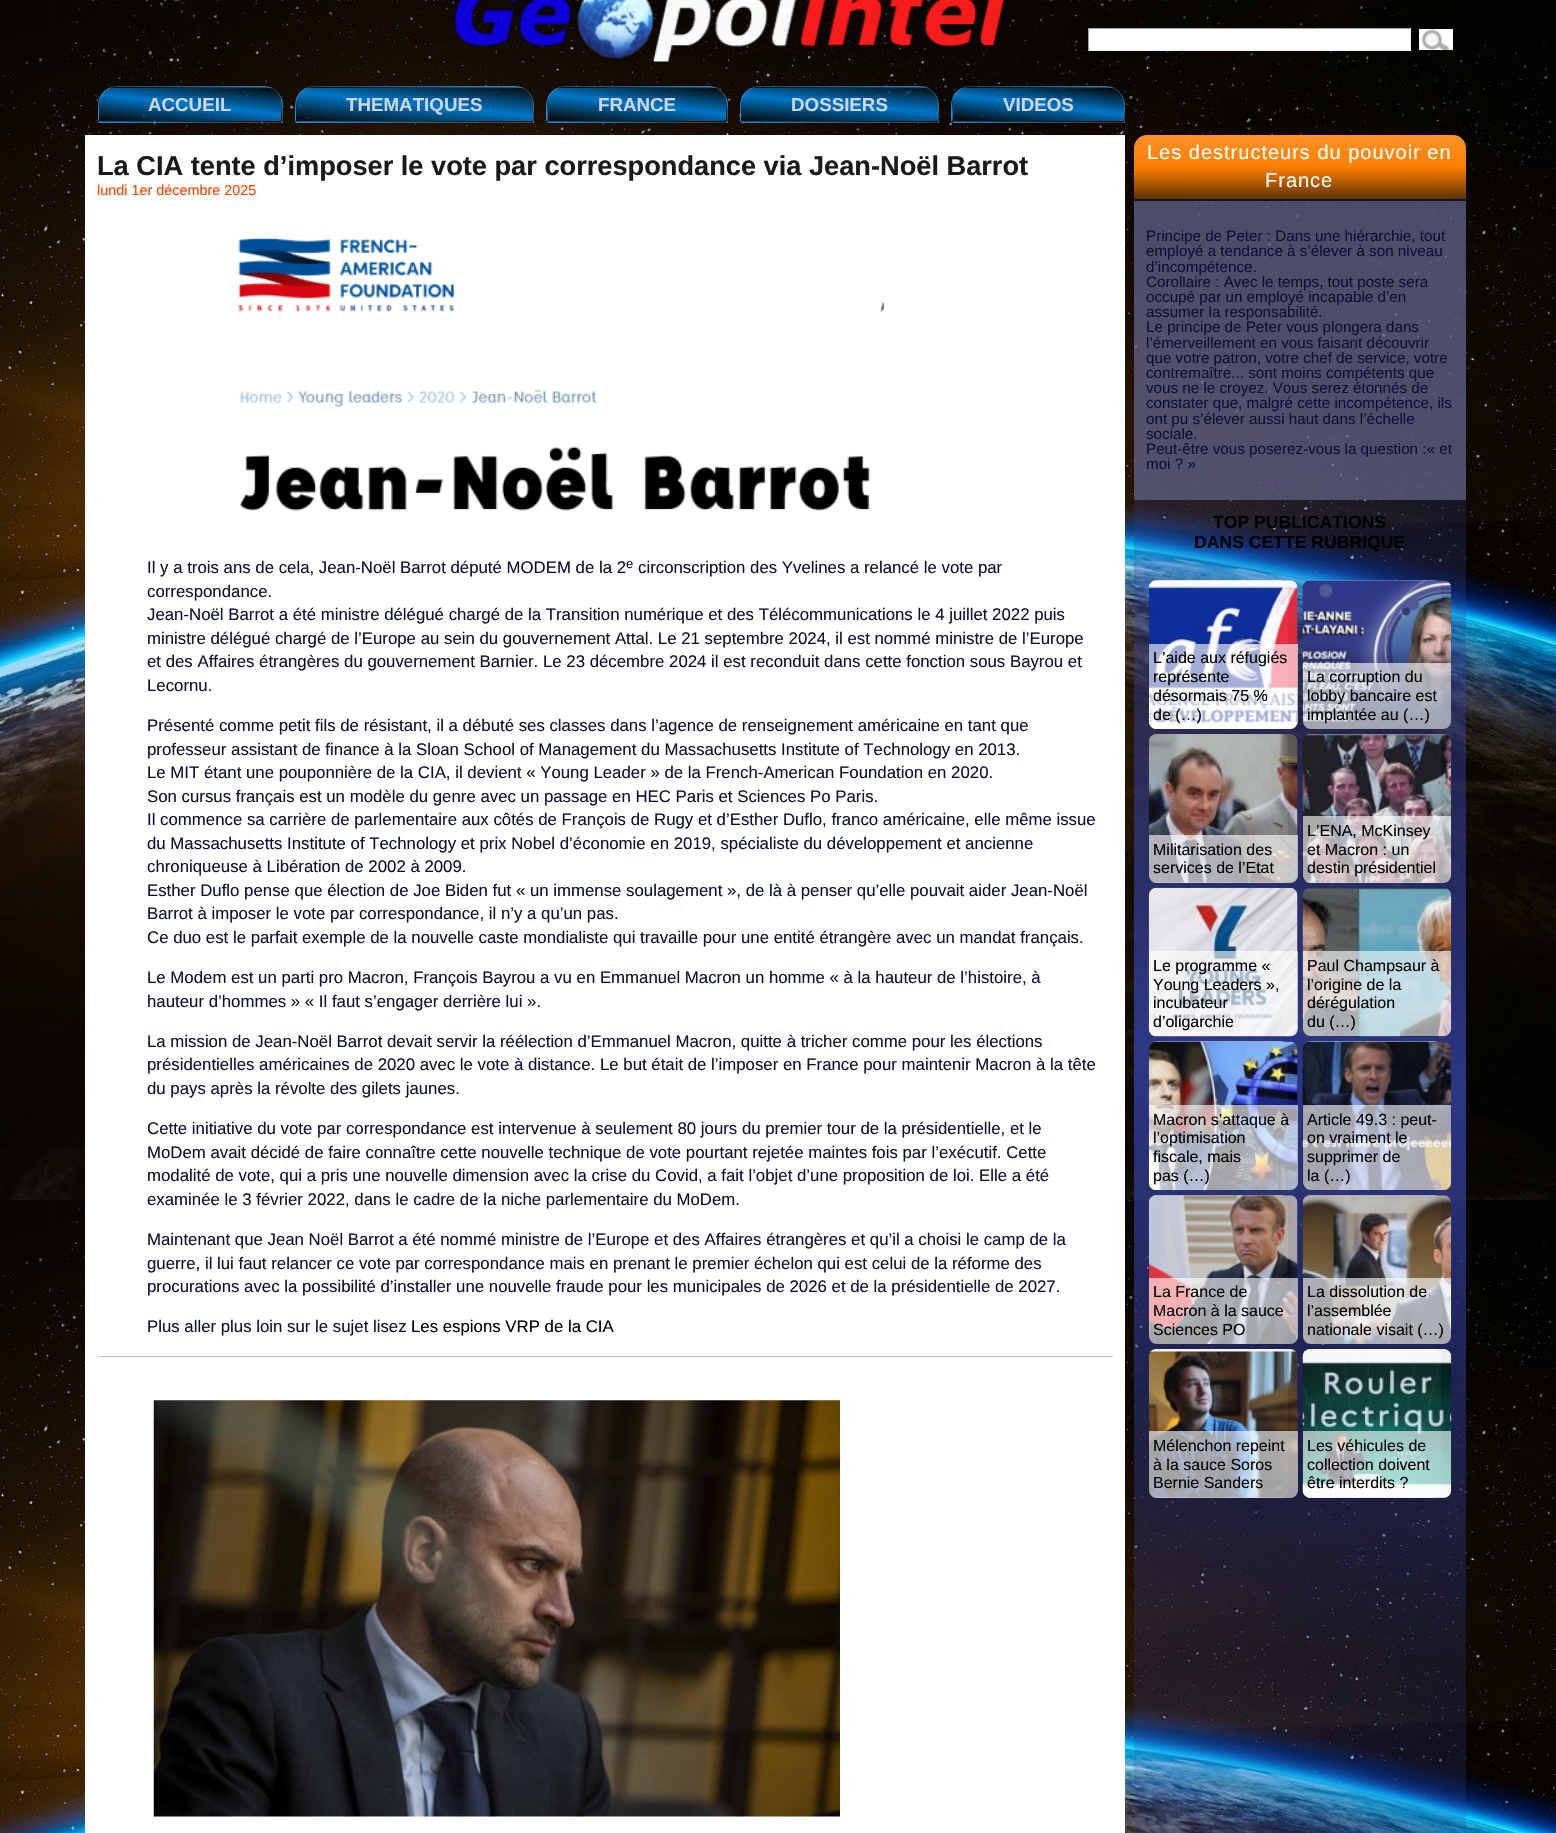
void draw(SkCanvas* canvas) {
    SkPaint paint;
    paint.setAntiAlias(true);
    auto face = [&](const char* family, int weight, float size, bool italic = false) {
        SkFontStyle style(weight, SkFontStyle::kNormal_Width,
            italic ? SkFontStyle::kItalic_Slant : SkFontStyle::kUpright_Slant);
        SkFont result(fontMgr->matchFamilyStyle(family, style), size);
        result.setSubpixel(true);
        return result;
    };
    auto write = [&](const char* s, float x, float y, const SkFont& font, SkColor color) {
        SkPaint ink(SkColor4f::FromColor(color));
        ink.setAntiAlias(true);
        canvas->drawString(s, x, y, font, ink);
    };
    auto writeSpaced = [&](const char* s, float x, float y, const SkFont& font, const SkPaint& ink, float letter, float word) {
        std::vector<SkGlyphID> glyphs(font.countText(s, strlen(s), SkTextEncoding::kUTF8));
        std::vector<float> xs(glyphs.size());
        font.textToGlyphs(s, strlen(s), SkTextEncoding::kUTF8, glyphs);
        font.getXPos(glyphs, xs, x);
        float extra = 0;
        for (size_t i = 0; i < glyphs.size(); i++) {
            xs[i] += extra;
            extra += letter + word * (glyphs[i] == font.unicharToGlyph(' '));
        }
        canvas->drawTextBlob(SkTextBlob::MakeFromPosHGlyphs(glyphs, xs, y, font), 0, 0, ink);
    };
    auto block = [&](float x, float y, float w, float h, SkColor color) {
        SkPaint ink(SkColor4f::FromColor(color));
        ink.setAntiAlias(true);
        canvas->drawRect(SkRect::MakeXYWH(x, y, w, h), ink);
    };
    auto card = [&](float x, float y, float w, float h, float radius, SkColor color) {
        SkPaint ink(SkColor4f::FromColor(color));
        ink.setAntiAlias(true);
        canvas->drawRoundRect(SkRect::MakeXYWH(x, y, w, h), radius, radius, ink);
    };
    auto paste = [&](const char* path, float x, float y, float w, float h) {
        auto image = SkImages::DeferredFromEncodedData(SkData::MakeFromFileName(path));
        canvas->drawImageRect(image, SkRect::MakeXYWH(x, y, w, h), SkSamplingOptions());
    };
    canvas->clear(SK_ColorWHITE);
    paste("pic1.png", 0, 0, 1556, 1833);
    paste("pic2.png", 454, 0, 550, 62);
    block(1089, 29, 321, 21, SK_ColorWHITE);
    block(1088, 28, 323, 1, SkColorSetRGB(159, 159, 159));
    block(1410, 28, 1, 23, SkColorSetRGB(238, 238, 238));
    block(1088, 50, 323, 1, SkColorSetRGB(238, 238, 238));
    block(1088, 28, 1, 23, SkColorSetRGB(159, 159, 159));
    block(1419, 29, 34, 21, SK_ColorWHITE);
    paste("pic3.png", 1421, 29, 28, 21);
    paint.setStyle(SkPaint::kStroke_Style);
    paint.setStrokeWidth(3);
    paint.setColor(SK_ColorBLACK);
    canvas->drawRect(SkRect::MakeXYWH(1417.5f, 27.5f, 37, 24), paint);
    paint.setStyle(SkPaint::kFill_Style);
    paint.setColor(SkColorSetARGB(181, 0, 0, 0));
    canvas->drawPath(SkPathBuilder().moveTo(117, 86).lineTo(264, 86).cubicTo(274.5f, 86, 283, 94.5f, 283, 105).lineTo(283, 123).lineTo(98, 123).lineTo(98, 105).cubicTo(98, 94.5f, 106.5f, 86, 117, 86).close().detach(), paint);
    canvas->save();
    canvas->clipPath(SkPathBuilder().moveTo(117, 86).lineTo(264, 86).cubicTo(274.5f, 86, 283, 94.5f, 283, 105).lineTo(283, 123).lineTo(98, 123).lineTo(98, 105).cubicTo(98, 94.5f, 106.5f, 86, 117, 86).close().detach(), true);
    {
        const SkColor colors[] = {SkColorSetARGB(0, 0, 118, 199), SkColorSetRGB(0, 118, 199), SkColorSetARGB(0, 0, 118, 199)};
        const float stops[] = {0, 0.5f, 1};
        const SkPoint ends[] = {{187, 97}, {193, 44}};
        paint.setShader(SkGradientShader::MakeLinear(ends, colors, stops, 3, SkTileMode::kClamp));
        paint.setAlpha(255);
    }
    canvas->drawRect(SkRect::MakeXYWH(110, 86, 171, 2), paint);
    {
        const SkColor colors[] = {SkColorSetARGB(0, 0, 118, 199), SkColorSetRGB(0, 118, 199), SkColorSetARGB(0, 0, 118, 199)};
        const float stops[] = {0, 0.5f, 1};
        const SkPoint ends[] = {{4.7f, 131}, {10, 78}};
        paint.setShader(SkGradientShader::MakeLinear(ends, colors, stops, 3, SkTileMode::kClamp));
        paint.setAlpha(255);
    }
    canvas->drawRect(SkRect::MakeXYWH(98, 99, 1, 22), paint);
    {
        const SkColor colors[] = {SkColorSetARGB(0, 0, 118, 199), SkColorSetRGB(0, 118, 199), SkColorSetARGB(0, 0, 118, 199)};
        const float stops[] = {0, 0.5f, 1};
        const SkPoint ends[] = {{187, 131}, {193, 78}};
        paint.setShader(SkGradientShader::MakeLinear(ends, colors, stops, 3, SkTileMode::kClamp));
        paint.setAlpha(255);
    }
    canvas->drawRect(SkRect::MakeXYWH(99, 88, 182, 33), paint);
    {
        const SkColor colors[] = {SkColorSetARGB(0, 0, 118, 199), SkColorSetRGB(0, 118, 199), SkColorSetARGB(0, 0, 118, 199)};
        const float stops[] = {0, 0.5f, 1};
        const SkPoint ends[] = {{370, 131}, {375, 78}};
        paint.setShader(SkGradientShader::MakeLinear(ends, colors, stops, 3, SkTileMode::kClamp));
        paint.setAlpha(255);
    }
    canvas->drawRect(SkRect::MakeXYWH(281, 88, 2, 33), paint);
    canvas->restore();
    {
        const SkColor colors[] = {SkColorSetRGB(5, 3, 1), SkColorSetRGB(0, 118, 199), SkColorSetRGB(5, 3, 1)};
        const float stops[] = {0, 0.5f, 1};
        const SkPoint ends[] = {{4.7f, 164}, {10, 112}};
        paint.setShader(SkGradientShader::MakeLinear(ends, colors, stops, 3, SkTileMode::kClamp));
        paint.setAlpha(255);
    }
    canvas->drawRect(SkRect::MakeXYWH(98, 121, 1, 2), paint);
    {
        const SkColor colors[] = {SkColorSetARGB(0, 0, 118, 199), SkColorSetRGB(0, 118, 199), SkColorSetARGB(0, 0, 118, 199)};
        const float stops[] = {0, 0.5f, 1};
        const SkPoint ends[] = {{187, 164}, {193, 112}};
        paint.setShader(SkGradientShader::MakeLinear(ends, colors, stops, 3, SkTileMode::kClamp));
        paint.setAlpha(255);
    }
    canvas->drawRect(SkRect::MakeXYWH(99, 121, 182, 2), paint);
    {
        const SkColor colors[] = {SkColorSetRGB(7, 5, 2), SkColorSetRGB(0, 118, 199), SkColorSetRGB(7, 5, 2)};
        const float stops[] = {0, 0.5f, 1};
        const SkPoint ends[] = {{370, 164}, {375, 112}};
        paint.setShader(SkGradientShader::MakeLinear(ends, colors, stops, 3, SkTileMode::kClamp));
        paint.setAlpha(255);
    }
    canvas->drawRect(SkRect::MakeXYWH(281, 121, 2, 2), paint);
    paint.setStyle(SkPaint::kStroke_Style);
    paint.setStrokeWidth(1);
    paint.setShader(nullptr);
    paint.setColor(SkColorSetARGB(51, 255, 255, 255));
    canvas->drawPath(SkPathBuilder().moveTo(117, 86.5f).lineTo(264, 86.5f).cubicTo(274, 86.5f, 282.5f, 95, 282.5f, 105).lineTo(282.5f, 122.5f).lineTo(98.5f, 122.5f).lineTo(98.5f, 105).cubicTo(98.5f, 95, 107, 86.5f, 117, 86.5f).close().detach(), paint);
    auto kFont1 = face("Liberation Sans", 700, 18.75f);
    write("ACCUEIL", 148, 111, kFont1, SkColorSetRGB(203, 214, 222));
    paint.setStyle(SkPaint::kFill_Style);
    paint.setColor(SkColorSetARGB(181, 0, 0, 0));
    canvas->drawPath(SkPathBuilder().moveTo(314, 86).lineTo(515, 86).cubicTo(525.5f, 86, 534, 94.5f, 534, 105).lineTo(534, 123).lineTo(295, 123).lineTo(295, 105).cubicTo(295, 94.5f, 303.5f, 86, 314, 86).close().detach(), paint);
    canvas->save();
    canvas->clipPath(SkPathBuilder().moveTo(314, 86).lineTo(515, 86).cubicTo(525.5f, 86, 534, 94.5f, 534, 105).lineTo(534, 123).lineTo(295, 123).lineTo(295, 105).cubicTo(295, 94.5f, 303.5f, 86, 314, 86).close().detach(), true);
    {
        const SkColor colors[] = {SkColorSetARGB(0, 0, 118, 199), SkColorSetRGB(0, 118, 199), SkColorSetARGB(0, 0, 118, 199)};
        const float stops[] = {0, 0.5f, 1};
        const SkPoint ends[] = {{411, 100}, {417, 42}};
        paint.setShader(SkGradientShader::MakeLinear(ends, colors, stops, 3, SkTileMode::kClamp));
        paint.setAlpha(255);
    }
    canvas->drawRect(SkRect::MakeXYWH(306, 86, 218, 2), paint);
    {
        const SkColor colors[] = {SkColorSetARGB(0, 0, 118, 199), SkColorSetRGB(0, 118, 199), SkColorSetARGB(0, 0, 118, 199)};
        const float stops[] = {0, 0.5f, 1};
        const SkPoint ends[] = {{175, 133}, {181, 75}};
        paint.setShader(SkGradientShader::MakeLinear(ends, colors, stops, 3, SkTileMode::kClamp));
        paint.setAlpha(255);
    }
    canvas->drawRect(SkRect::MakeXYWH(295, 99, 1, 22), paint);
    {
        const SkColor colors[] = {SkColorSetARGB(0, 0, 118, 199), SkColorSetRGB(0, 118, 199), SkColorSetARGB(0, 0, 118, 199)};
        const float stops[] = {0, 0.5f, 1};
        const SkPoint ends[] = {{411, 133}, {417, 75}};
        paint.setShader(SkGradientShader::MakeLinear(ends, colors, stops, 3, SkTileMode::kClamp));
        paint.setAlpha(255);
    }
    canvas->drawRect(SkRect::MakeXYWH(296, 88, 237, 33), paint);
    {
        const SkColor colors[] = {SkColorSetARGB(0, 0, 118, 199), SkColorSetRGB(0, 118, 199), SkColorSetARGB(0, 0, 118, 199)};
        const float stops[] = {0, 0.5f, 1};
        const SkPoint ends[] = {{648, 133}, {654, 75}};
        paint.setShader(SkGradientShader::MakeLinear(ends, colors, stops, 3, SkTileMode::kClamp));
        paint.setAlpha(255);
    }
    canvas->drawRect(SkRect::MakeXYWH(533, 99, 1, 22), paint);
    canvas->restore();
    {
        const SkColor colors[] = {SkColorSetRGB(8, 4, 2), SkColorSetRGB(0, 118, 199), SkColorSetRGB(8, 4, 2)};
        const float stops[] = {0, 0.5f, 1};
        const SkPoint ends[] = {{175, 167}, {181, 109}};
        paint.setShader(SkGradientShader::MakeLinear(ends, colors, stops, 3, SkTileMode::kClamp));
        paint.setAlpha(255);
    }
    canvas->drawRect(SkRect::MakeXYWH(295, 121, 1, 2), paint);
    {
        const SkColor colors[] = {SkColorSetARGB(0, 0, 118, 199), SkColorSetRGB(0, 118, 199), SkColorSetARGB(0, 0, 118, 199)};
        const float stops[] = {0, 0.5f, 1};
        const SkPoint ends[] = {{411, 167}, {417, 109}};
        paint.setShader(SkGradientShader::MakeLinear(ends, colors, stops, 3, SkTileMode::kClamp));
        paint.setAlpha(255);
    }
    canvas->drawRect(SkRect::MakeXYWH(296, 121, 237, 2), paint);
    {
        const SkColor colors[] = {SkColorSetRGB(9, 5, 1), SkColorSetRGB(0, 118, 199), SkColorSetRGB(9, 5, 1)};
        const float stops[] = {0, 0.5f, 1};
        const SkPoint ends[] = {{648, 167}, {654, 109}};
        paint.setShader(SkGradientShader::MakeLinear(ends, colors, stops, 3, SkTileMode::kClamp));
        paint.setAlpha(255);
    }
    canvas->drawRect(SkRect::MakeXYWH(533, 121, 1, 2), paint);
    paint.setStyle(SkPaint::kStroke_Style);
    paint.setShader(nullptr);
    paint.setColor(SkColorSetARGB(51, 255, 255, 255));
    canvas->drawPath(SkPathBuilder().moveTo(314, 86.5f).lineTo(515, 86.5f).cubicTo(525, 86.5f, 533.5f, 95, 533.5f, 105).lineTo(533.5f, 122.5f).lineTo(295.5f, 122.5f).lineTo(295.5f, 105).cubicTo(295.5f, 95, 304, 86.5f, 314, 86.5f).close().detach(), paint);
    write("THEMATIQUES", 346, 111, kFont1, SkColorSetRGB(203, 214, 222));
    paint.setStyle(SkPaint::kFill_Style);
    paint.setColor(SkColorSetARGB(181, 0, 0, 0));
    canvas->drawPath(SkPathBuilder().moveTo(565, 86).lineTo(709, 86).cubicTo(719.5f, 86, 728, 94.5f, 728, 105).lineTo(728, 123).lineTo(546, 123).lineTo(546, 105).cubicTo(546, 94.5f, 554.5f, 86, 565, 86).close().detach(), paint);
    canvas->save();
    canvas->clipPath(SkPathBuilder().moveTo(565, 86).lineTo(709, 86).cubicTo(719.5f, 86, 728, 94.5f, 728, 105).lineTo(728, 123).lineTo(546, 123).lineTo(546, 105).cubicTo(546, 94.5f, 554.5f, 86, 565, 86).close().detach(), true);
    {
        const SkColor colors[] = {SkColorSetARGB(0, 0, 118, 199), SkColorSetRGB(0, 118, 199), SkColorSetARGB(0, 0, 118, 199)};
        const float stops[] = {0, 0.5f, 1};
        const SkPoint ends[] = {{634, 97}, {640, 45}};
        paint.setShader(SkGradientShader::MakeLinear(ends, colors, stops, 3, SkTileMode::kClamp));
        paint.setAlpha(255);
    }
    canvas->drawRect(SkRect::MakeXYWH(558, 86, 168, 2), paint);
    {
        const SkColor colors[] = {SkColorSetARGB(0, 0, 118, 199), SkColorSetRGB(0, 118, 199), SkColorSetARGB(0, 0, 118, 199)};
        const float stops[] = {0, 0.5f, 1};
        const SkPoint ends[] = {{455, 130}, {461, 78}};
        paint.setShader(SkGradientShader::MakeLinear(ends, colors, stops, 3, SkTileMode::kClamp));
        paint.setAlpha(255);
    }
    canvas->drawRect(SkRect::MakeXYWH(546, 97, 2, 24), paint);
    {
        const SkColor colors[] = {SkColorSetARGB(0, 0, 118, 199), SkColorSetRGB(0, 118, 199), SkColorSetARGB(0, 0, 118, 199)};
        const float stops[] = {0, 0.5f, 1};
        const SkPoint ends[] = {{634, 130}, {640, 78}};
        paint.setShader(SkGradientShader::MakeLinear(ends, colors, stops, 3, SkTileMode::kClamp));
        paint.setAlpha(255);
    }
    canvas->drawRect(SkRect::MakeXYWH(548, 88, 178, 33), paint);
    {
        const SkColor colors[] = {SkColorSetARGB(0, 0, 118, 199), SkColorSetRGB(0, 118, 199), SkColorSetARGB(0, 0, 118, 199)};
        const float stops[] = {0, 0.5f, 1};
        const SkPoint ends[] = {{813, 130}, {818, 78}};
        paint.setShader(SkGradientShader::MakeLinear(ends, colors, stops, 3, SkTileMode::kClamp));
        paint.setAlpha(255);
    }
    canvas->drawRect(SkRect::MakeXYWH(726, 88, 2, 33), paint);
    canvas->restore();
    {
        const SkColor colors[] = {SkColorSetRGB(9, 5, 2), SkColorSetRGB(0, 118, 199), SkColorSetRGB(9, 5, 2)};
        const float stops[] = {0, 0.5f, 1};
        const SkPoint ends[] = {{455, 164}, {461, 112}};
        paint.setShader(SkGradientShader::MakeLinear(ends, colors, stops, 3, SkTileMode::kClamp));
        paint.setAlpha(255);
    }
    canvas->drawRect(SkRect::MakeXYWH(546, 122, 2, 1), paint);
    {
        const SkColor colors[] = {SkColorSetARGB(0, 0, 118, 199), SkColorSetRGB(0, 118, 199), SkColorSetARGB(0, 0, 118, 199)};
        const float stops[] = {0, 0.5f, 1};
        const SkPoint ends[] = {{634, 164}, {640, 112}};
        paint.setShader(SkGradientShader::MakeLinear(ends, colors, stops, 3, SkTileMode::kClamp));
        paint.setAlpha(255);
    }
    canvas->drawRect(SkRect::MakeXYWH(548, 121, 178, 2), paint);
    {
        const SkColor colors[] = {SkColorSetRGB(7, 4, 1), SkColorSetRGB(0, 118, 199), SkColorSetRGB(7, 4, 1)};
        const float stops[] = {0, 0.5f, 1};
        const SkPoint ends[] = {{813, 164}, {818, 112}};
        paint.setShader(SkGradientShader::MakeLinear(ends, colors, stops, 3, SkTileMode::kClamp));
        paint.setAlpha(255);
    }
    canvas->drawRect(SkRect::MakeXYWH(726, 121, 2, 2), paint);
    paint.setStyle(SkPaint::kStroke_Style);
    paint.setShader(nullptr);
    paint.setColor(SkColorSetARGB(51, 255, 255, 255));
    canvas->drawPath(SkPathBuilder().moveTo(565, 86.5f).lineTo(709, 86.5f).cubicTo(719, 86.5f, 727.5f, 95, 727.5f, 105).lineTo(727.5f, 122.5f).lineTo(546.5f, 122.5f).lineTo(546.5f, 105).cubicTo(546.5f, 95, 555, 86.5f, 565, 86.5f).close().detach(), paint);
    write("FRANCE", 598, 111, kFont1, SkColorSetRGB(203, 214, 222));
    paint.setStyle(SkPaint::kFill_Style);
    paint.setColor(SkColorSetARGB(181, 0, 0, 0));
    canvas->drawPath(SkPathBuilder().moveTo(759, 86).lineTo(920, 86).cubicTo(930.5f, 86, 939, 94.5f, 939, 105).lineTo(939, 123).lineTo(740, 123).lineTo(740, 105).cubicTo(740, 94.5f, 748.5f, 86, 759, 86).close().detach(), paint);
    canvas->save();
    canvas->clipPath(SkPathBuilder().moveTo(759, 86).lineTo(920, 86).cubicTo(930.5f, 86, 939, 94.5f, 939, 105).lineTo(939, 123).lineTo(740, 123).lineTo(740, 105).cubicTo(740, 94.5f, 748.5f, 86, 759, 86).close().detach(), true);
    {
        const SkColor colors[] = {SkColorSetARGB(0, 0, 118, 199), SkColorSetRGB(0, 118, 199), SkColorSetARGB(0, 0, 118, 199)};
        const float stops[] = {0, 0.5f, 1};
        const SkPoint ends[] = {{837, 98}, {842, 44}};
        paint.setShader(SkGradientShader::MakeLinear(ends, colors, stops, 3, SkTileMode::kClamp));
        paint.setAlpha(255);
    }
    canvas->drawRect(SkRect::MakeXYWH(751, 86, 178, 2), paint);
    {
        const SkColor colors[] = {SkColorSetARGB(0, 0, 118, 199), SkColorSetRGB(0, 118, 199), SkColorSetARGB(0, 0, 118, 199)};
        const float stops[] = {0, 0.5f, 1};
        const SkPoint ends[] = {{640, 131}, {646, 77}};
        paint.setShader(SkGradientShader::MakeLinear(ends, colors, stops, 3, SkTileMode::kClamp));
        paint.setAlpha(255);
    }
    canvas->drawRect(SkRect::MakeXYWH(740, 99, 1, 22), paint);
    {
        const SkColor colors[] = {SkColorSetARGB(0, 0, 118, 199), SkColorSetRGB(0, 118, 199), SkColorSetARGB(0, 0, 118, 199)};
        const float stops[] = {0, 0.5f, 1};
        const SkPoint ends[] = {{837, 131}, {842, 77}};
        paint.setShader(SkGradientShader::MakeLinear(ends, colors, stops, 3, SkTileMode::kClamp));
        paint.setAlpha(255);
    }
    canvas->drawRect(SkRect::MakeXYWH(741, 88, 197, 33), paint);
    {
        const SkColor colors[] = {SkColorSetARGB(0, 0, 118, 199), SkColorSetRGB(0, 118, 199), SkColorSetARGB(0, 0, 118, 199)};
        const float stops[] = {0, 0.5f, 1};
        const SkPoint ends[] = {{1033, 131}, {1038, 77}};
        paint.setShader(SkGradientShader::MakeLinear(ends, colors, stops, 3, SkTileMode::kClamp));
        paint.setAlpha(255);
    }
    canvas->drawRect(SkRect::MakeXYWH(938, 99, 1, 22), paint);
    canvas->restore();
    {
        const SkColor colors[] = {SkColorSetARGB(0, 0, 118, 199), SkColorSetRGB(0, 118, 199), SkColorSetARGB(0, 0, 118, 199)};
        const float stops[] = {0, 0.5f, 1};
        const SkPoint ends[] = {{640, 165}, {646, 111}};
        paint.setShader(SkGradientShader::MakeLinear(ends, colors, stops, 3, SkTileMode::kClamp));
        paint.setAlpha(255);
    }
    canvas->drawRect(SkRect::MakeXYWH(740, 121, 1, 2), paint);
    {
        const SkColor colors[] = {SkColorSetARGB(0, 0, 118, 199), SkColorSetRGB(0, 118, 199), SkColorSetARGB(0, 0, 118, 199)};
        const float stops[] = {0, 0.5f, 1};
        const SkPoint ends[] = {{837, 165}, {842, 111}};
        paint.setShader(SkGradientShader::MakeLinear(ends, colors, stops, 3, SkTileMode::kClamp));
        paint.setAlpha(255);
    }
    canvas->drawRect(SkRect::MakeXYWH(741, 121, 197, 2), paint);
    {
        const SkColor colors[] = {SkColorSetRGB(5, 3, 1), SkColorSetRGB(0, 118, 199), SkColorSetRGB(5, 3, 1)};
        const float stops[] = {0, 0.5f, 1};
        const SkPoint ends[] = {{1033, 165}, {1038, 111}};
        paint.setShader(SkGradientShader::MakeLinear(ends, colors, stops, 3, SkTileMode::kClamp));
        paint.setAlpha(255);
    }
    canvas->drawRect(SkRect::MakeXYWH(938, 121, 1, 2), paint);
    paint.setStyle(SkPaint::kStroke_Style);
    paint.setShader(nullptr);
    paint.setColor(SkColorSetARGB(51, 255, 255, 255));
    canvas->drawPath(SkPathBuilder().moveTo(759, 86.5f).lineTo(920, 86.5f).cubicTo(930, 86.5f, 938.5f, 95, 938.5f, 105).lineTo(938.5f, 122.5f).lineTo(740.5f, 122.5f).lineTo(740.5f, 105).cubicTo(740.5f, 95, 749, 86.5f, 759, 86.5f).close().detach(), paint);
    write("DOSSIERS", 791, 111, kFont1, SkColorSetRGB(203, 214, 222));
    paint.setStyle(SkPaint::kFill_Style);
    paint.setColor(SkColorSetARGB(181, 0, 0, 0));
    canvas->drawPath(SkPathBuilder().moveTo(970, 86).lineTo(1106, 86).cubicTo(1116.5f, 86, 1125, 94.5f, 1125, 105).lineTo(1125, 123).lineTo(951, 123).lineTo(951, 105).cubicTo(951, 94.5f, 959.5f, 86, 970, 86).close().detach(), paint);
    canvas->save();
    canvas->clipPath(SkPathBuilder().moveTo(970, 86).lineTo(1106, 86).cubicTo(1116.5f, 86, 1125, 94.5f, 1125, 105).lineTo(1125, 123).lineTo(951, 123).lineTo(951, 105).cubicTo(951, 94.5f, 959.5f, 86, 970, 86).close().detach(), true);
    {
        const SkColor colors[] = {SkColorSetARGB(0, 0, 118, 199), SkColorSetRGB(0, 118, 199), SkColorSetARGB(0, 0, 118, 199)};
        const float stops[] = {0, 0.5f, 1};
        const SkPoint ends[] = {{1035, 96}, {1041, 45}};
        paint.setShader(SkGradientShader::MakeLinear(ends, colors, stops, 3, SkTileMode::kClamp));
        paint.setAlpha(255);
    }
    canvas->drawRect(SkRect::MakeXYWH(965, 86, 150, 2), paint);
    {
        const SkColor colors[] = {SkColorSetARGB(0, 0, 118, 199), SkColorSetRGB(0, 118, 199), SkColorSetARGB(0, 0, 118, 199)};
        const float stops[] = {0, 0.5f, 1};
        const SkPoint ends[] = {{864, 130}, {870, 79}};
        paint.setShader(SkGradientShader::MakeLinear(ends, colors, stops, 3, SkTileMode::kClamp));
        paint.setAlpha(255);
    }
    canvas->drawRect(SkRect::MakeXYWH(951, 97, 2, 24), paint);
    {
        const SkColor colors[] = {SkColorSetARGB(0, 0, 118, 199), SkColorSetRGB(0, 118, 199), SkColorSetARGB(0, 0, 118, 199)};
        const float stops[] = {0, 0.5f, 1};
        const SkPoint ends[] = {{1035, 130}, {1041, 79}};
        paint.setShader(SkGradientShader::MakeLinear(ends, colors, stops, 3, SkTileMode::kClamp));
        paint.setAlpha(255);
    }
    canvas->drawRect(SkRect::MakeXYWH(953, 88, 171, 33), paint);
    {
        const SkColor colors[] = {SkColorSetARGB(0, 0, 118, 199), SkColorSetRGB(0, 118, 199), SkColorSetARGB(0, 0, 118, 199)};
        const float stops[] = {0, 0.5f, 1};
        const SkPoint ends[] = {{1207, 130}, {1212, 79}};
        paint.setShader(SkGradientShader::MakeLinear(ends, colors, stops, 3, SkTileMode::kClamp));
        paint.setAlpha(255);
    }
    canvas->drawRect(SkRect::MakeXYWH(1124, 99, 1, 22), paint);
    canvas->restore();
    {
        const SkColor colors[] = {SkColorSetARGB(0, 0, 118, 199), SkColorSetRGB(0, 118, 199), SkColorSetARGB(0, 0, 118, 199)};
        const float stops[] = {0, 0.5f, 1};
        const SkPoint ends[] = {{1035, 164}, {1041, 113}};
        paint.setShader(SkGradientShader::MakeLinear(ends, colors, stops, 3, SkTileMode::kClamp));
        paint.setAlpha(255);
    }
    canvas->drawRect(SkRect::MakeXYWH(953, 121, 171, 2), paint);
    {
        const SkColor colors[] = {SkColorSetRGB(5, 3, 1), SkColorSetRGB(0, 118, 199), SkColorSetRGB(5, 3, 1)};
        const float stops[] = {0, 0.5f, 1};
        const SkPoint ends[] = {{1207, 164}, {1212, 113}};
        paint.setShader(SkGradientShader::MakeLinear(ends, colors, stops, 3, SkTileMode::kClamp));
        paint.setAlpha(255);
    }
    canvas->drawRect(SkRect::MakeXYWH(1124, 121, 1, 2), paint);
    paint.setStyle(SkPaint::kStroke_Style);
    paint.setShader(nullptr);
    paint.setColor(SkColorSetARGB(51, 255, 255, 255));
    canvas->drawPath(SkPathBuilder().moveTo(970, 86.5f).lineTo(1106, 86.5f).cubicTo(1116, 86.5f, 1124.5f, 95, 1124.5f, 105).lineTo(1124.5f, 122.5f).lineTo(951.5f, 122.5f).lineTo(951.5f, 105).cubicTo(951.5f, 95, 960, 86.5f, 970, 86.5f).close().detach(), paint);
    write("VIDEOS", 1003, 111, kFont1, SkColorSetRGB(203, 214, 222));
    block(85, 135, 1040, 1698, SK_ColorWHITE);
    auto kFont2 = face("Liberation Sans", 700, 27.2f);
    write("La CIA tente d’imposer le vote par correspondance via Jean-Noël Barrot", 97, 175, kFont2, SkColorSetRGB(26, 26, 26));
    auto kFont3 = face("Liberation Sans", 400, 14.4f);
    write("lundi 1er décembre 2025", 97, 195, kFont3, SkColorSetRGB(255, 68, 0));
    block(98, 1356, 1015, 1, SkColorSetRGB(193, 190, 190));
    paste("pic4.png", 238, 237, 646, 274);
    auto kFont4 = face("Liberation Sans", 400, 16.8f);
    write("Il y a trois ans de cela, Jean-Noël Barrot député MODEM de la 2", 147, 573, kFont4, SkColorSetRGB(14, 15, 55));
    auto kFont5 = face("Liberation Sans", 400, 13);
    write("e", 626, 568, kFont5, SkColorSetRGB(14, 15, 55));
    write("circonscription des Yvelines a relancé le vote par", 638, 573, kFont4, SkColorSetRGB(14, 15, 55));
    write("correspondance.", 147, 597, kFont4, SkColorSetRGB(14, 15, 55));
    write("Jean-Noël Barrot a été ministre délégué chargé de la Transition numérique et des Télécommunications le 4 juillet 2022 puis", 147, 620, kFont4, SkColorSetRGB(14, 15, 55));
    write("ministre délégué chargé de l’Europe au sein du gouvernement Attal. Le 21 septembre 2024, il est nommé ministre de l’Europe", 147, 644, kFont4, SkColorSetRGB(14, 15, 55));
    write("et des Affaires étrangères du gouvernement Barnier. Le 23 décembre 2024 il est reconduit dans cette fonction sous Bayrou et", 147, 667, kFont4, SkColorSetRGB(14, 15, 55));
    write("Lecornu.", 147, 691, kFont4, SkColorSetRGB(14, 15, 55));
    write("Présenté comme petit fils de résistant, il a débuté ses classes dans l’agence de renseignement américaine en tant que", 147, 731, kFont4, SkColorSetRGB(14, 15, 55));
    write("professeur assistant de finance à la Sloan School of Management du Massachusetts Institute of Technology en 2013.", 147, 755, kFont4, SkColorSetRGB(14, 15, 55));
    write("Le MIT étant une pouponnière de la CIA, il devient « Young Leader » de la French-American Foundation en 2020.", 147, 778, kFont4, SkColorSetRGB(14, 15, 55));
    write("Son cursus français est un modèle du genre avec un passage en HEC Paris et Sciences Po Paris.", 147, 802, kFont4, SkColorSetRGB(14, 15, 55));
    write("Il commence sa carrière de parlementaire aux côtés de François de Rugy et d’Esther Duflo, franco américaine, elle même issue", 147, 825, kFont4, SkColorSetRGB(14, 15, 55));
    write("du Massachusetts Institute of Technology et prix Nobel d’économie en 2019, spécialiste du développement et ancienne", 147, 849, kFont4, SkColorSetRGB(14, 15, 55));
    write("chroniqueuse à Libération de 2002 à 2009.", 147, 872, kFont4, SkColorSetRGB(14, 15, 55));
    write("Esther Duflo pense que élection de Joe Biden fut « un immense soulagement », de là à penser qu’elle pouvait aider Jean-Noël", 147, 896, kFont4, SkColorSetRGB(14, 15, 55));
    write("Barrot à imposer le vote par correspondance, il n’y a qu’un pas.", 147, 919, kFont4, SkColorSetRGB(14, 15, 55));
    write("Ce duo est le parfait exemple de la nouvelle caste mondialiste qui travaille pour une entité étrangère avec un mandat français.", 147, 943, kFont4, SkColorSetRGB(14, 15, 55));
    write("Le Modem est un parti pro Macron, François Bayrou a vu en Emmanuel Macron un homme « à la hauteur de l’histoire, à", 147, 983, kFont4, SkColorSetRGB(14, 15, 55));
    write("hauteur d’hommes » « Il faut s’engager derrière lui ».", 147, 1007, kFont4, SkColorSetRGB(14, 15, 55));
    write("La mission de Jean-Noël Barrot devait servir la réélection d’Emmanuel Macron, quitte à tricher comme pour les élections", 147, 1047, kFont4, SkColorSetRGB(14, 15, 55));
    write("présidentielles américaines de 2020 avec le vote à distance. Le but était de l’imposer en France pour maintenir Macron à la tête", 147, 1070, kFont4, SkColorSetRGB(14, 15, 55));
    write("du pays après la révolte des gilets jaunes.", 147, 1094, kFont4, SkColorSetRGB(14, 15, 55));
    write("Cette initiative du vote par correspondance est intervenue à seulement 80 jours du premier tour de la présidentielle, et le", 147, 1134, kFont4, SkColorSetRGB(14, 15, 55));
    write("MoDem avait décidé de faire connaître cette nouvelle technique de vote pourtant rejetée maintes fois par l’exécutif. Cette", 147, 1158, kFont4, SkColorSetRGB(14, 15, 55));
    write("modalité de vote, qui a pris une nouvelle dimension avec la crise du Covid, a fait l’objet d’une proposition de loi. Elle a été", 147, 1181, kFont4, SkColorSetRGB(14, 15, 55));
    write("examinée le 3 février 2022, dans le cadre de la niche parlementaire du MoDem.", 147, 1205, kFont4, SkColorSetRGB(14, 15, 55));
    write("Maintenant que Jean Noël Barrot a été nommé ministre de l’Europe et des Affaires étrangères et qu’il a choisi le camp de la", 147, 1245, kFont4, SkColorSetRGB(14, 15, 55));
    write("guerre, il lui faut relancer ce vote par correspondance mais en prenant le premier échelon qui est celui de la réforme des", 147, 1269, kFont4, SkColorSetRGB(14, 15, 55));
    write("procurations avec la possibilité d’installer une nouvelle fraude pour les municipales de 2026 et de la présidentielle de 2027.", 147, 1292, kFont4, SkColorSetRGB(14, 15, 55));
    write("Plus aller plus loin sur le sujet lisez", 147, 1332, kFont4, SkColorSetRGB(14, 15, 55));
    write("Les espions VRP de la CIA", 411, 1332, kFont4, SK_ColorBLACK);
    paste("pic5.png", 153, 1400, 687, 417);
    paint.setStyle(SkPaint::kFill_Style);
    {
        const SkColor colors[] = {SkColorSetRGB(93, 51, 0), SkColorSetRGB(255, 127, 0), SkColorSetRGB(251, 146, 42)};
        const float stops[] = {0, 0.5f, 1};
        const SkPoint ends[] = {{1300, 199}, {1300, 135}};
        paint.setShader(SkGradientShader::MakeLinear(ends, colors, stops, 3, SkTileMode::kClamp));
        paint.setAlpha(255);
    }
    canvas->drawPath(SkPathBuilder().moveTo(1147, 135).lineTo(1453, 135).cubicTo(1460, 135, 1466, 141, 1466, 148).lineTo(1466, 199).lineTo(1134, 199).lineTo(1134, 148).cubicTo(1134, 141, 1140, 135, 1147, 135).close().detach(), paint);
    auto kFont6 = face("Liberation Sans", 400, 20);
    paint.setShader(nullptr);
    paint.setColor(SK_ColorWHITE);
    writeSpaced("Les destructeurs du pouvoir en", 1147, 159, kFont6, paint, 1, 0);
    writeSpaced("France", 1265, 187, kFont6, paint, 1, 0);
    block(1134, 201, 332, 299, SkColorSetARGB(168, 104, 107, 142));
    auto kFont7 = face("Liberation Sans", 400, 15.2f);
    write("Principe de Peter : Dans une hiérarchie, tout", 1146, 241, kFont7, SkColorSetRGB(14, 15, 55));
    write("employé a tendance à s’élever à son niveau", 1146, 256, kFont7, SkColorSetRGB(14, 15, 55));
    write("d’incompétence.", 1146, 272, kFont7, SkColorSetRGB(14, 15, 55));
    write("Corollaire : Avec le temps, tout poste sera", 1146, 287, kFont7, SkColorSetRGB(14, 15, 55));
    write("occupé par un employé incapable d’en", 1146, 302, kFont7, SkColorSetRGB(14, 15, 55));
    write("assumer la responsabilité.", 1146, 317, kFont7, SkColorSetRGB(14, 15, 55));
    write("Le principe de Peter vous plongera dans", 1146, 332, kFont7, SkColorSetRGB(14, 15, 55));
    write("l’émerveillement en vous faisant découvrir", 1146, 348, kFont7, SkColorSetRGB(14, 15, 55));
    write("que votre patron, votre chef de service, votre", 1146, 363, kFont7, SkColorSetRGB(14, 15, 55));
    write("contremaître... sont moins compétents que", 1146, 378, kFont7, SkColorSetRGB(14, 15, 55));
    write("vous ne le croyez. Vous serez étonnés de", 1146, 393, kFont7, SkColorSetRGB(14, 15, 55));
    write("constater que, malgré cette incompétence, ils", 1146, 408, kFont7, SkColorSetRGB(14, 15, 55));
    write("ont pu s’élever aussi haut dans l’échelle", 1146, 424, kFont7, SkColorSetRGB(14, 15, 55));
    write("sociale.", 1146, 439, kFont7, SkColorSetRGB(14, 15, 55));
    write("Peut-être vous poserez-vous la question :« et", 1146, 454, kFont7, SkColorSetRGB(14, 15, 55));
    write("moi ? »", 1146, 469, kFont7, SkColorSetRGB(14, 15, 55));
    auto kFont8 = face("Liberation Sans", 700, 17.6f);
    write("TOP PUBLICATIONS", 1213, 528, kFont8, SK_ColorBLACK);
    write("DANS CETTE RUBRIQUE", 1194, 548, kFont8, SK_ColorBLACK);
    card(1149, 580, 139, 149, 8, SkColorSetARGB(143, 255, 255, 255));
    paste("pic6.png", 1148, 580, 150, 149);
    paint.setColor(SkColorSetARGB(156, 255, 255, 255));
    canvas->drawPath(SkPathBuilder().moveTo(1149, 644).lineTo(1298, 644).lineTo(1298, 721).cubicTo(1298, 725.5f, 1294.5f, 729, 1290, 729).lineTo(1157, 729).cubicTo(1152.5f, 729, 1149, 725.5f, 1149, 721).close().detach(), paint);
    auto kFont9 = face("Liberation Sans", 400, 16);
    write("L’aide aux réfugiés", 1153, 663, kFont9, SK_ColorBLACK);
    write("représente", 1153, 682, kFont9, SK_ColorBLACK);
    write("désormais 75 %", 1153, 701, kFont9, SK_ColorBLACK);
    write("de (…)", 1153, 720, kFont9, SK_ColorBLACK);
    card(1303, 580, 138, 149, 8, SkColorSetARGB(143, 255, 255, 255));
    paste("pic7.png", 1302, 580, 150, 149);
    canvas->drawPath(SkPathBuilder().moveTo(1303, 663).lineTo(1451, 663).lineTo(1451, 721).cubicTo(1451, 725.5f, 1447.5f, 729, 1443, 729).lineTo(1311, 729).cubicTo(1306.5f, 729, 1303, 725.5f, 1303, 721).close().detach(), paint);
    write("La corruption du", 1307, 682, kFont9, SK_ColorBLACK);
    write("lobby bancaire est", 1307, 701, kFont9, SK_ColorBLACK);
    write("implantée au (…)", 1307, 720, kFont9, SK_ColorBLACK);
    card(1149, 734, 139, 149, 8, SkColorSetARGB(143, 255, 255, 255));
    paste("pic8.png", 1148, 734, 150, 149);
    canvas->drawPath(SkPathBuilder().moveTo(1149, 835).lineTo(1298, 835).lineTo(1298, 875).cubicTo(1298, 879.5f, 1294.5f, 883, 1290, 883).lineTo(1157, 883).cubicTo(1152.5f, 883, 1149, 879.5f, 1149, 875).close().detach(), paint);
    write("Militarisation des", 1153, 855, kFont9, SK_ColorBLACK);
    write("services de l’Etat", 1153, 873, kFont9, SK_ColorBLACK);
    card(1303, 734, 138, 149, 8, SkColorSetARGB(143, 255, 255, 255));
    paste("pic9.png", 1302, 734, 150, 149);
    canvas->drawPath(SkPathBuilder().moveTo(1303, 816).lineTo(1451, 816).lineTo(1451, 875).cubicTo(1451, 879.5f, 1447.5f, 883, 1443, 883).lineTo(1311, 883).cubicTo(1306.5f, 883, 1303, 879.5f, 1303, 875).close().detach(), paint);
    write("L’ENA, McKinsey", 1307, 836, kFont9, SK_ColorBLACK);
    write("et Macron : un", 1307, 855, kFont9, SK_ColorBLACK);
    write("destin présidentiel", 1307, 873, kFont9, SK_ColorBLACK);
    paste("pic10.png", 1148, 887, 150, 150);
    canvas->drawPath(SkPathBuilder().moveTo(1149, 951).lineTo(1298, 951).lineTo(1298, 1028).cubicTo(1298, 1032.5f, 1294.5f, 1036, 1290, 1036).lineTo(1157, 1036).cubicTo(1152.5f, 1036, 1149, 1032.5f, 1149, 1028).close().detach(), paint);
    write("Le programme «", 1153, 971, kFont9, SK_ColorBLACK);
    write("Young Leaders »,", 1153, 990, kFont9, SK_ColorBLACK);
    write("incubateur", 1153, 1008, kFont9, SK_ColorBLACK);
    write("d’oligarchie", 1153, 1027, kFont9, SK_ColorBLACK);
    paste("pic11.png", 1302, 888, 150, 149);
    canvas->drawPath(SkPathBuilder().moveTo(1303, 951).lineTo(1451, 951).lineTo(1451, 1028).cubicTo(1451, 1032.5f, 1447.5f, 1036, 1443, 1036).lineTo(1311, 1036).cubicTo(1306.5f, 1036, 1303, 1032.5f, 1303, 1028).close().detach(), paint);
    write("Paul Champsaur à", 1307, 971, kFont9, SK_ColorBLACK);
    write("l’origine de la", 1307, 990, kFont9, SK_ColorBLACK);
    write("dérégulation", 1307, 1008, kFont9, SK_ColorBLACK);
    write("du (…)", 1307, 1027, kFont9, SK_ColorBLACK);
    card(1149, 1041, 139, 149, 8, SkColorSetARGB(143, 255, 255, 255));
    paste("pic12.png", 1148, 1041, 150, 150);
    canvas->drawPath(SkPathBuilder().moveTo(1149, 1105).lineTo(1298, 1105).lineTo(1298, 1182).cubicTo(1298, 1186.5f, 1294.5f, 1190, 1290, 1190).lineTo(1157, 1190).cubicTo(1152.5f, 1190, 1149, 1186.5f, 1149, 1182).close().detach(), paint);
    write("Macron s’attaque à", 1153, 1125, kFont9, SK_ColorBLACK);
    write("l’optimisation", 1153, 1143, kFont9, SK_ColorBLACK);
    write("fiscale, mais", 1153, 1162, kFont9, SK_ColorBLACK);
    write("pas (…)", 1153, 1181, kFont9, SK_ColorBLACK);
    card(1303, 1041, 138, 149, 8, SkColorSetARGB(143, 255, 255, 255));
    paste("pic13.png", 1302, 1041, 150, 150);
    canvas->drawPath(SkPathBuilder().moveTo(1303, 1105).lineTo(1451, 1105).lineTo(1451, 1182).cubicTo(1451, 1186.5f, 1447.5f, 1190, 1443, 1190).lineTo(1311, 1190).cubicTo(1306.5f, 1190, 1303, 1186.5f, 1303, 1182).close().detach(), paint);
    write("Article 49.3 : peut-", 1307, 1125, kFont9, SK_ColorBLACK);
    write("on vraiment le", 1307, 1143, kFont9, SK_ColorBLACK);
    write("supprimer de", 1307, 1162, kFont9, SK_ColorBLACK);
    write("la (…)", 1307, 1181, kFont9, SK_ColorBLACK);
    card(1149, 1195, 139, 149, 8, SkColorSetARGB(143, 255, 255, 255));
    paste("pic14.png", 1148, 1195, 150, 149);
    canvas->drawPath(SkPathBuilder().moveTo(1149, 1278).lineTo(1298, 1278).lineTo(1298, 1336).cubicTo(1298, 1340.5f, 1294.5f, 1344, 1290, 1344).lineTo(1157, 1344).cubicTo(1152.5f, 1344, 1149, 1340.5f, 1149, 1336).close().detach(), paint);
    write("La France de", 1153, 1297, kFont9, SK_ColorBLACK);
    write("Macron à la sauce", 1153, 1316, kFont9, SK_ColorBLACK);
    write("Sciences PO", 1153, 1335, kFont9, SK_ColorBLACK);
    card(1303, 1195, 138, 149, 8, SkColorSetARGB(143, 255, 255, 255));
    paste("pic15.png", 1302, 1195, 150, 149);
    canvas->drawPath(SkPathBuilder().moveTo(1303, 1278).lineTo(1451, 1278).lineTo(1451, 1336).cubicTo(1451, 1340.5f, 1447.5f, 1344, 1443, 1344).lineTo(1311, 1344).cubicTo(1306.5f, 1344, 1303, 1340.5f, 1303, 1336).close().detach(), paint);
    write("La dissolution de", 1307, 1297, kFont9, SK_ColorBLACK);
    write("l’assemblée", 1307, 1316, kFont9, SK_ColorBLACK);
    write("nationale visait (…)", 1307, 1335, kFont9, SK_ColorBLACK);
    card(1149, 1349, 139, 149, 8, SkColorSetARGB(143, 255, 255, 255));
    paste("pic16.png", 1148, 1349, 150, 149);
    canvas->drawPath(SkPathBuilder().moveTo(1149, 1431).lineTo(1298, 1431).lineTo(1298, 1490).cubicTo(1298, 1494.5f, 1294.5f, 1498, 1290, 1498).lineTo(1157, 1498).cubicTo(1152.5f, 1498, 1149, 1494.5f, 1149, 1490).close().detach(), paint);
    write("Mélenchon repeint", 1153, 1451, kFont9, SK_ColorBLACK);
    write("à la sauce Soros", 1153, 1470, kFont9, SK_ColorBLACK);
    write("Bernie Sanders", 1153, 1488, kFont9, SK_ColorBLACK);
    card(1303, 1349, 138, 149, 8, SkColorSetARGB(143, 255, 255, 255));
    paste("pic17.png", 1302, 1349, 150, 149);
    canvas->drawPath(SkPathBuilder().moveTo(1303, 1431).lineTo(1451, 1431).lineTo(1451, 1490).cubicTo(1451, 1494.5f, 1447.5f, 1498, 1443, 1498).lineTo(1311, 1498).cubicTo(1306.5f, 1498, 1303, 1494.5f, 1303, 1490).close().detach(), paint);
    write("Les véhicules de", 1307, 1451, kFont9, SK_ColorBLACK);
    write("collection doivent", 1307, 1470, kFont9, SK_ColorBLACK);
    write("être interdits ?", 1307, 1488, kFont9, SK_ColorBLACK);
}
